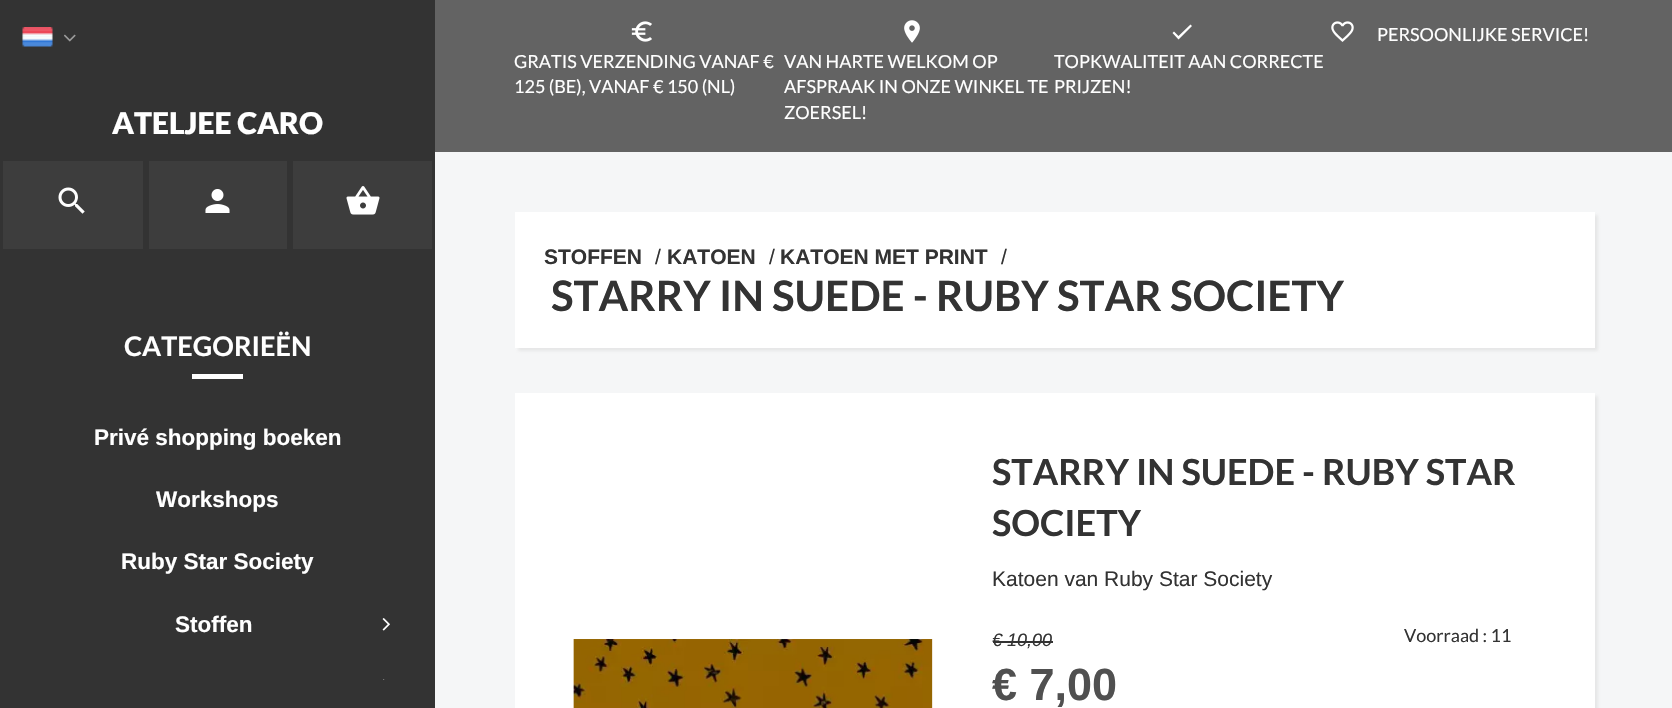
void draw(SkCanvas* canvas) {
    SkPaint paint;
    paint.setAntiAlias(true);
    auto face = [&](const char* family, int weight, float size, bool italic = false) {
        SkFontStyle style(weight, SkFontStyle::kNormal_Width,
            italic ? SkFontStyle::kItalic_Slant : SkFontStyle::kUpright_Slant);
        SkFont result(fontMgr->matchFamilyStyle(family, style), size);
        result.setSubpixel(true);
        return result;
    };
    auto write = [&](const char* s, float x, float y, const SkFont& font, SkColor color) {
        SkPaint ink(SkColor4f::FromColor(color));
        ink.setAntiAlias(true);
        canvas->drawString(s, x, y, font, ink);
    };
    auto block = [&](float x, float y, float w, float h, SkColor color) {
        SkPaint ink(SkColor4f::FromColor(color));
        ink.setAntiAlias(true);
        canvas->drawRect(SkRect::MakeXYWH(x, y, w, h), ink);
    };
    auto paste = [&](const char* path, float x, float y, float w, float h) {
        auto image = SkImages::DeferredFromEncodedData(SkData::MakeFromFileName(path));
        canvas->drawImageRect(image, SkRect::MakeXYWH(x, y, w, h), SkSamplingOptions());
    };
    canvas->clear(SkColorSetRGB(245, 246, 247));
    block(435, 0, 1237, 152, SkColorSetRGB(99, 99, 99));
    paste("pic1.png", 1331, 21, 23, 21);
    auto kFont1 = face("Lato", 400, 18);
    write("PERSOONLIJKE SERVICE!", 1377, 41, kFont1, SK_ColorWHITE);
    paste("pic2.png", 631, 21, 21, 21);
    write("GRATIS VERZENDING VANAF €", 514, 68, kFont1, SK_ColorWHITE);
    write("125 (BE), VANAF € 150 (NL)", 514, 93, kFont1, SK_ColorWHITE);
    paste("pic3.png", 904, 20, 16, 23);
    write("VAN HARTE WELKOM OP", 784, 68, kFont1, SK_ColorWHITE);
    write("AFSPRAAK IN ONZE WINKEL TE", 784, 93, kFont1, SK_ColorWHITE);
    write("ZOERSEL!", 784, 119, kFont1, SK_ColorWHITE);
    paint.setColor(SK_ColorWHITE);
    canvas->drawPath(SkPathBuilder().moveTo(1178.5f, 36).lineTo(1190.5f, 24.5f).lineTo(1192, 26).lineTo(1178.5f, 39.5f).lineTo(1172.5f, 33).lineTo(1174, 31.5f).close().detach(), paint);
    write("TOPKWALITEIT AAN CORRECTE", 1054, 68, kFont1, SK_ColorWHITE);
    write("PRIJZEN!", 1054, 93, kFont1, SK_ColorWHITE);
    block(0, 0, 435, 708, SkColorSetRGB(51, 51, 51));
    paste("pic4.png", 22, 27, 31, 20);
    paste("pic5.png", 64, 34, 12, 8);
    auto kFont2 = face("Lato", 900, 30);
    write("ATELJEE CARO", 112, 134, kFont2, SK_ColorWHITE);
    block(3, 161, 140, 88, SkColorSetRGB(61, 61, 61));
    paste("pic6.png", 58, 187, 27, 27);
    block(149, 161, 138, 88, SkColorSetRGB(61, 61, 61));
    paste("pic7.png", 205, 189, 25, 24);
    block(293, 161, 139, 88, SkColorSetRGB(61, 61, 61));
    paste("pic8.png", 346, 186, 34, 29);
    auto kFont3 = face("Lato", 700, 27);
    write("CATEGORIEËN", 124, 356, kFont3, SK_ColorWHITE);
    block(192, 374, 51, 5, SK_ColorWHITE);
    auto kFont4 = face("Liberation Sans", 700, 22.5f);
    write("Privé shopping boeken", 94, 445, kFont4, SK_ColorWHITE);
    write("Workshops", 156, 507, kFont4, SK_ColorWHITE);
    write("Ruby Star Society", 121, 569, kFont4, SK_ColorWHITE);
    write("Stoffen", 175, 632, kFont4, SK_ColorWHITE);
    paste("pic9.png", 382, 618, 8, 13);
    paste("pic10.png", 383, 679, 2, 1);
    paint.setColor(SkColorSetARGB(128, 215, 215, 215));
    paint.setMaskFilter(SkMaskFilter::MakeBlur(kNormal_SkBlurStyle, 1.5f));
    canvas->drawRect(SkRect::MakeXYWH(518, 215, 1080, 136), paint);
    paint.setMaskFilter(nullptr);
    block(515, 212, 1080, 136, SK_ColorWHITE);
    auto kFont5 = face("Liberation Sans", 700, 21);
    write("STOFFEN", 544, 264, kFont5, SkColorSetRGB(51, 51, 51));
    auto kFont6 = face("Liberation Sans", 400, 21);
    write("/", 655, 264, kFont6, SkColorSetRGB(51, 51, 51));
    write("KATOEN", 667, 264, kFont5, SkColorSetRGB(51, 51, 51));
    write("/", 769, 264, kFont6, SkColorSetRGB(51, 51, 51));
    write("KATOEN MET PRINT", 780, 264, kFont5, SkColorSetRGB(51, 51, 51));
    write("/", 1001, 264, kFont6, SkColorSetRGB(51, 51, 51));
    auto kFont7 = face("Lato", 700, 42);
    write("STARRY IN SUEDE - RUBY STAR SOCIETY", 551, 311, kFont7, SkColorSetRGB(51, 51, 51));
    paint.setMaskFilter(SkMaskFilter::MakeBlur(kNormal_SkBlurStyle, 1.5f));
    canvas->drawRect(SkRect::MakeXYWH(518, 396, 1080, 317), paint);
    paint.setMaskFilter(nullptr);
    block(515, 393, 1080, 315, SK_ColorWHITE);
    paste("pic11.png", 573, 639, 360, 69);
    auto kFont8 = face("Lato", 700, 36);
    write("STARRY IN SUEDE - RUBY STAR", 992, 485, kFont8, SkColorSetRGB(51, 51, 51));
    write("SOCIETY", 992, 536, kFont8, SkColorSetRGB(51, 51, 51));
    write("Katoen van Ruby Star Society", 992, 586, kFont6, SkColorSetRGB(51, 51, 51));
    auto kFont9 = face("Liberation Sans", 400, 18, true);
    write("€ 10,00", 992, 646, kFont9, SkColorSetRGB(51, 51, 51));
    block(993, 641, 60, 2, SkColorSetRGB(51, 51, 51));
    auto kFont10 = face("Liberation Sans", 700, 45);
    write("€ 7,00", 992, 700, kFont10, SkColorSetRGB(80, 80, 80));
    write("Voorraad : 11", 1404, 642, kFont1, SkColorSetRGB(51, 51, 51));
}
